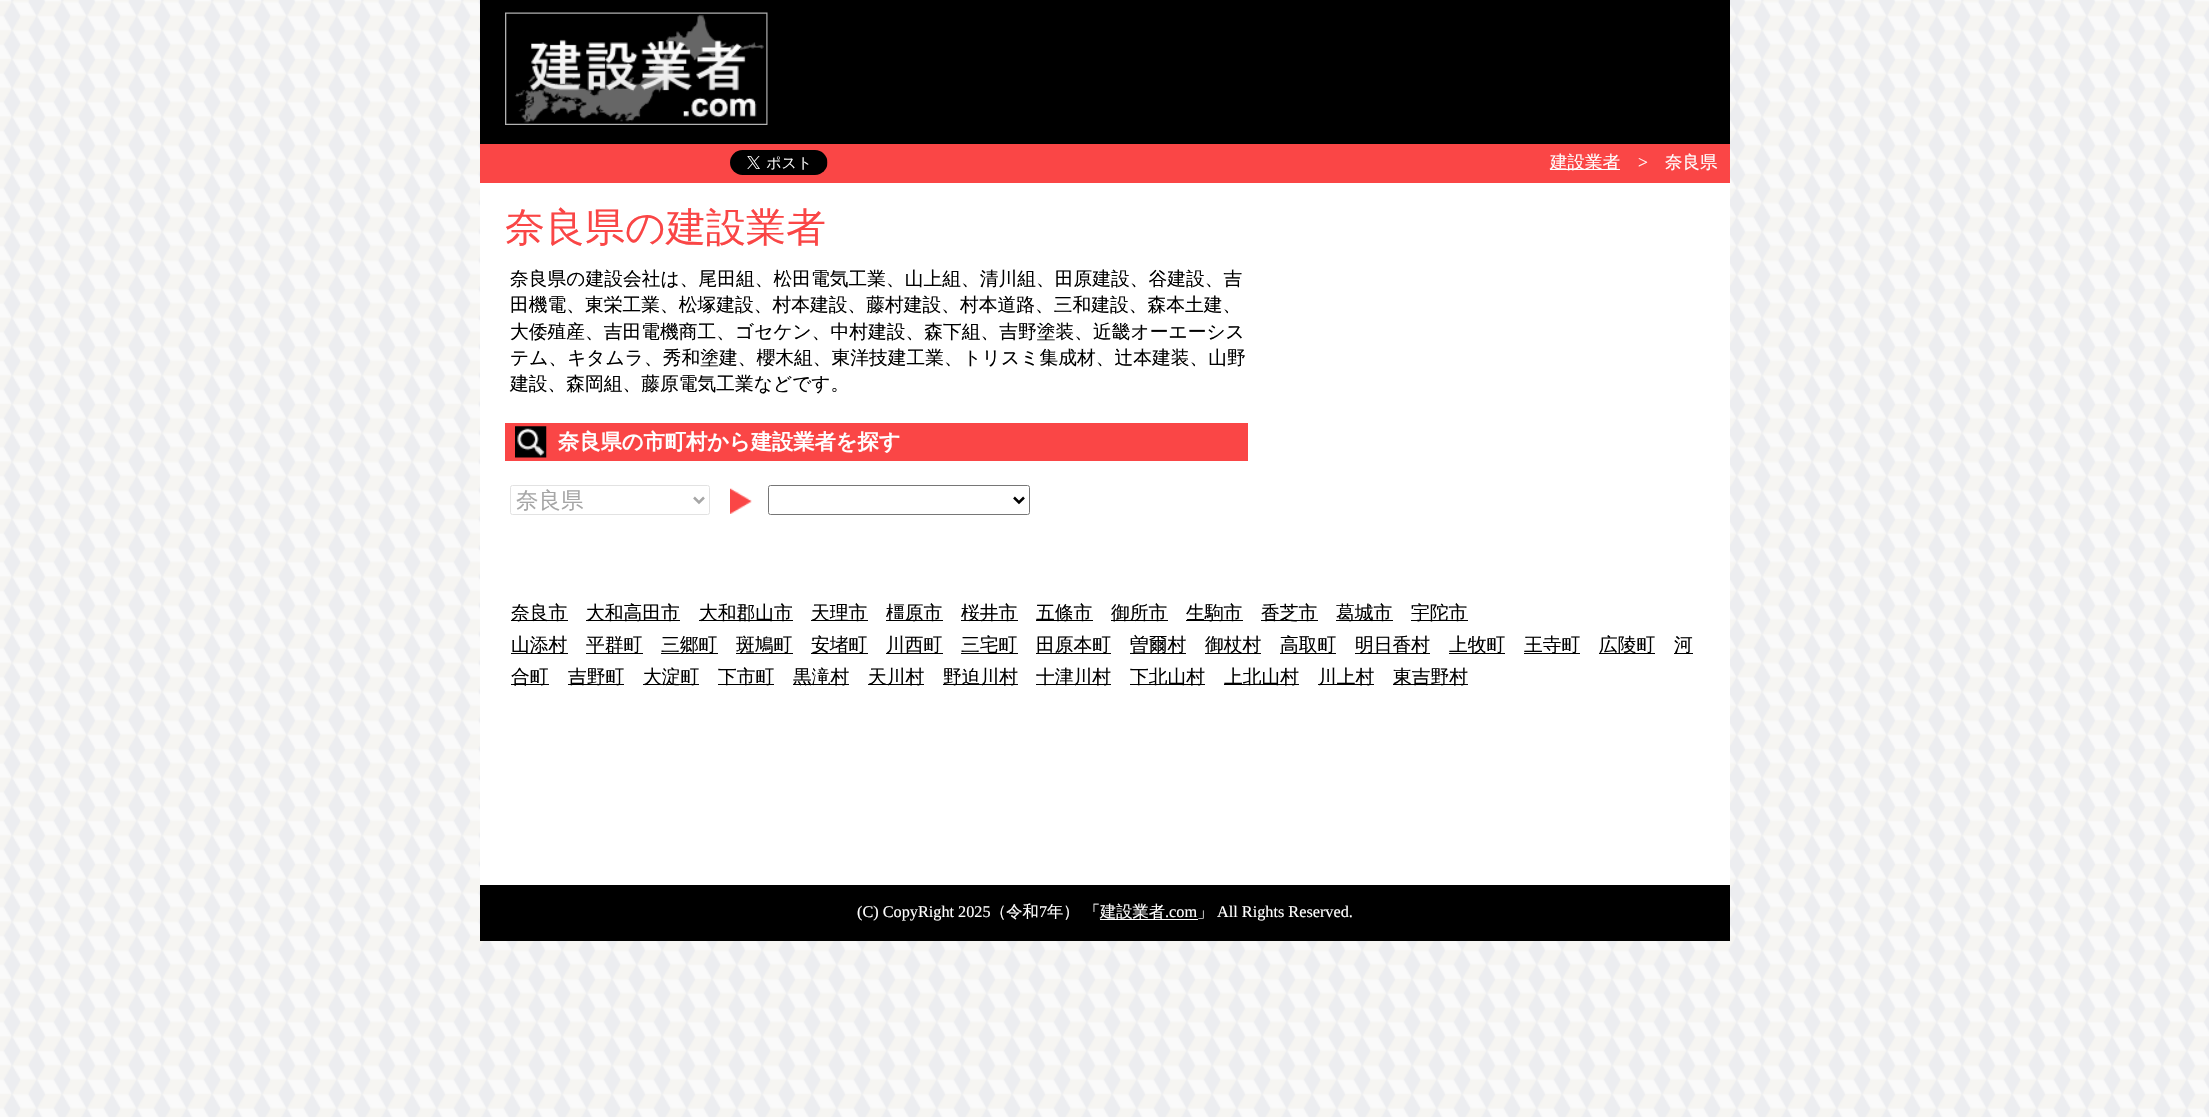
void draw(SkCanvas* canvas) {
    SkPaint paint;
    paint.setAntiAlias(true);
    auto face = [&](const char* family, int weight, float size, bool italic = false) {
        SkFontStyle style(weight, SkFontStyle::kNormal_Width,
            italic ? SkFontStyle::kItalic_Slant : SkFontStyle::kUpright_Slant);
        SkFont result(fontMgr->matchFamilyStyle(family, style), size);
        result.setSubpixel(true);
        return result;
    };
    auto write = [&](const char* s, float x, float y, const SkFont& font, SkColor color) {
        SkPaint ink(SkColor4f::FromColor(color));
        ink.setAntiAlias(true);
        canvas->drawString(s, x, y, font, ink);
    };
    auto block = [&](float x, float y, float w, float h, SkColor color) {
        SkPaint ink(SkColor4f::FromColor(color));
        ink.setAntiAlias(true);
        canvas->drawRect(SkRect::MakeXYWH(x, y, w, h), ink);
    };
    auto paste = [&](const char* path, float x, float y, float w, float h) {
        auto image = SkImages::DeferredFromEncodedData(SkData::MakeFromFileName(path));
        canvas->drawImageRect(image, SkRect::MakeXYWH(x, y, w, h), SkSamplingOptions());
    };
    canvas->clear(SK_ColorWHITE);
    paste("pic1.png", 0, 0, 2209, 1117);
    block(480, 183, 1250, 702, SK_ColorWHITE);
    block(480, 0, 1250, 144, SK_ColorBLACK);
    paste("pic2.png", 505, 12, 263, 113);
    block(480, 144, 1250, 39, SkColorSetRGB(250, 70, 70));
    paste("pic3.png", 730, 150, 98, 25);
    block(1550, 169, 70, 1, SK_ColorWHITE);
    auto kFont1 = face("WenQuanYi Zen Hei", 500, 17.5f);
    write("建設業者", 1550, 168, kFont1, SK_ColorWHITE);
    auto kFont2 = face("Liberation Serif", 400, 17.5f);
    write(">", 1638, 168, kFont2, SK_ColorWHITE);
    write("奈良県", 1665, 168, kFont1, SK_ColorWHITE);
    auto kFont3 = face("WenQuanYi Zen Hei", 500, 40);
    write("奈良県の建設業者", 505, 241, kFont3, SkColorSetRGB(250, 70, 70));
    auto kFont4 = face("WenQuanYi Zen Hei", 500, 18.75f);
    write("奈良県の建設会社は、尾田組、松田電気工業、山上組、清川組、田原建設、谷建設、吉", 510, 285, kFont4, SK_ColorBLACK);
    write("田機電、東栄工業、松塚建設、村本建設、藤村建設、村本道路、三和建設、森本土建、", 510, 311, kFont4, SK_ColorBLACK);
    write("大倭殖産、吉田電機商工、ゴセケン、中村建設、森下組、吉野塗装、近畿オーエーシス", 510, 338, kFont4, SK_ColorBLACK);
    write("テム、キタムラ、秀和塗建、櫻木組、東洋技建工業、トリスミ集成材、辻本建装、山野", 510, 364, kFont4, SK_ColorBLACK);
    write("建設、森岡組、藤原電気工業などです。", 510, 390, kFont4, SK_ColorBLACK);
    block(505, 423, 743, 38, SkColorSetRGB(250, 70, 70));
    paste("pic4.png", 515, 426, 32, 32);
    auto kFont5 = face("WenQuanYi Zen Hei", 700, 21.25f);
    write("奈良県の市町村から建設業者を探す", 558, 449, kFont5, SK_ColorWHITE);
    paint.setStyle(SkPaint::kStroke_Style);
    paint.setStrokeWidth(1);
    paint.setColor(SkColorSetRGB(226, 226, 226));
    canvas->drawRoundRect(SkRect::MakeXYWH(510.5f, 485.5f, 199, 29), 2, 2, paint);
    paint.setStrokeWidth(2.5f);
    paint.setColor(SkColorSetRGB(166, 166, 166));
    canvas->drawPath(SkPathBuilder().moveTo(694, 497.5f).lineTo(699, 502.5f).lineTo(704, 497.5f).detach(), paint);
    auto kFont6 = face("WenQuanYi Zen Hei", 500, 22.5f);
    write("奈良県", 516, 508, kFont6, SkColorSetRGB(166, 166, 166));
    paste("pic5.png", 730, 488, 22, 26);
    paint.setStrokeWidth(1);
    paint.setColor(SkColorSetRGB(118, 118, 118));
    canvas->drawRoundRect(SkRect::MakeXYWH(768.5f, 485.5f, 261, 29), 2, 2, paint);
    paint.setStrokeWidth(2.5f);
    paint.setColor(SK_ColorBLACK);
    canvas->drawPath(SkPathBuilder().moveTo(1014, 497.5f).lineTo(1019, 502.5f).lineTo(1024, 497.5f).detach(), paint);
    block(511, 620, 57, 1, SK_ColorBLACK);
    write("奈良市", 511, 619, kFont4, SK_ColorBLACK);
    block(586, 620, 94, 1, SK_ColorBLACK);
    write("大和高田市", 586, 619, kFont4, SK_ColorBLACK);
    block(699, 620, 94, 1, SK_ColorBLACK);
    write("大和郡山市", 699, 619, kFont4, SK_ColorBLACK);
    block(811, 620, 57, 1, SK_ColorBLACK);
    write("天理市", 811, 619, kFont4, SK_ColorBLACK);
    block(886, 620, 57, 1, SK_ColorBLACK);
    write("橿原市", 886, 619, kFont4, SK_ColorBLACK);
    block(961, 620, 57, 1, SK_ColorBLACK);
    write("桜井市", 961, 619, kFont4, SK_ColorBLACK);
    block(1036, 620, 57, 1, SK_ColorBLACK);
    write("五條市", 1036, 619, kFont4, SK_ColorBLACK);
    block(1111, 620, 57, 1, SK_ColorBLACK);
    write("御所市", 1111, 619, kFont4, SK_ColorBLACK);
    block(1186, 620, 57, 1, SK_ColorBLACK);
    write("生駒市", 1186, 619, kFont4, SK_ColorBLACK);
    block(1261, 620, 57, 1, SK_ColorBLACK);
    write("香芝市", 1261, 619, kFont4, SK_ColorBLACK);
    block(1336, 620, 57, 1, SK_ColorBLACK);
    write("葛城市", 1336, 619, kFont4, SK_ColorBLACK);
    block(1411, 620, 57, 1, SK_ColorBLACK);
    write("宇陀市", 1411, 619, kFont4, SK_ColorBLACK);
    block(511, 653, 57, 1, SK_ColorBLACK);
    write("山添村", 511, 651, kFont4, SK_ColorBLACK);
    block(586, 653, 57, 1, SK_ColorBLACK);
    write("平群町", 586, 651, kFont4, SK_ColorBLACK);
    block(661, 653, 57, 1, SK_ColorBLACK);
    write("三郷町", 661, 651, kFont4, SK_ColorBLACK);
    block(736, 653, 57, 1, SK_ColorBLACK);
    write("斑鳩町", 736, 651, kFont4, SK_ColorBLACK);
    block(811, 653, 57, 1, SK_ColorBLACK);
    write("安堵町", 811, 651, kFont4, SK_ColorBLACK);
    block(886, 653, 57, 1, SK_ColorBLACK);
    write("川西町", 886, 651, kFont4, SK_ColorBLACK);
    block(961, 653, 57, 1, SK_ColorBLACK);
    write("三宅町", 961, 651, kFont4, SK_ColorBLACK);
    block(1036, 653, 75, 1, SK_ColorBLACK);
    write("田原本町", 1036, 651, kFont4, SK_ColorBLACK);
    block(1130, 653, 56, 1, SK_ColorBLACK);
    write("曽爾村", 1130, 651, kFont4, SK_ColorBLACK);
    block(1205, 653, 56, 1, SK_ColorBLACK);
    write("御杖村", 1205, 651, kFont4, SK_ColorBLACK);
    block(1280, 653, 56, 1, SK_ColorBLACK);
    write("高取町", 1280, 651, kFont4, SK_ColorBLACK);
    block(1355, 653, 75, 1, SK_ColorBLACK);
    write("明日香村", 1355, 651, kFont4, SK_ColorBLACK);
    block(1449, 653, 56, 1, SK_ColorBLACK);
    write("上牧町", 1449, 651, kFont4, SK_ColorBLACK);
    block(1524, 653, 56, 1, SK_ColorBLACK);
    write("王寺町", 1524, 651, kFont4, SK_ColorBLACK);
    block(1599, 653, 56, 1, SK_ColorBLACK);
    write("広陵町", 1599, 651, kFont4, SK_ColorBLACK);
    block(1674, 653, 19, 1, SK_ColorBLACK);
    write("河", 1674, 651, kFont4, SK_ColorBLACK);
    block(511, 684, 38, 1, SK_ColorBLACK);
    write("合町", 511, 683, kFont4, SK_ColorBLACK);
    block(568, 684, 56, 1, SK_ColorBLACK);
    write("吉野町", 568, 683, kFont4, SK_ColorBLACK);
    block(643, 684, 56, 1, SK_ColorBLACK);
    write("大淀町", 643, 683, kFont4, SK_ColorBLACK);
    block(718, 684, 56, 1, SK_ColorBLACK);
    write("下市町", 718, 683, kFont4, SK_ColorBLACK);
    block(793, 684, 56, 1, SK_ColorBLACK);
    write("黒滝村", 793, 683, kFont4, SK_ColorBLACK);
    block(868, 684, 56, 1, SK_ColorBLACK);
    write("天川村", 868, 683, kFont4, SK_ColorBLACK);
    block(943, 684, 75, 1, SK_ColorBLACK);
    write("野迫川村", 943, 683, kFont4, SK_ColorBLACK);
    block(1036, 684, 75, 1, SK_ColorBLACK);
    write("十津川村", 1036, 683, kFont4, SK_ColorBLACK);
    block(1130, 684, 75, 1, SK_ColorBLACK);
    write("下北山村", 1130, 683, kFont4, SK_ColorBLACK);
    block(1224, 684, 75, 1, SK_ColorBLACK);
    write("上北山村", 1224, 683, kFont4, SK_ColorBLACK);
    block(1318, 684, 56, 1, SK_ColorBLACK);
    write("川上村", 1318, 683, kFont4, SK_ColorBLACK);
    block(1393, 684, 75, 1, SK_ColorBLACK);
    write("東吉野村", 1393, 683, kFont4, SK_ColorBLACK);
    block(480, 885, 1250, 56, SK_ColorBLACK);
    auto kFont7 = face("Liberation Serif", 400, 16.25f);
    write("(C) CopyRight 2025", 857, 917, kFont7, SK_ColorWHITE);
    auto kFont8 = face("WenQuanYi Zen Hei", 500, 16.25f);
    write("（令和", 990, 917, kFont8, SK_ColorWHITE);
    write("7", 1039, 917, kFont7, SK_ColorWHITE);
    write("年）", 1047, 917, kFont8, SK_ColorWHITE);
    write("「", 1084, 917, kFont8, SK_ColorWHITE);
    block(1100, 919, 98, 1, SK_ColorWHITE);
    write("建設業者", 1100, 917, kFont8, SK_ColorWHITE);
    write(".com", 1165, 917, kFont7, SK_ColorWHITE);
    write("」", 1197, 917, kFont8, SK_ColorWHITE);
    write("All Rights Reserved.", 1217, 917, kFont7, SK_ColorWHITE);
}
